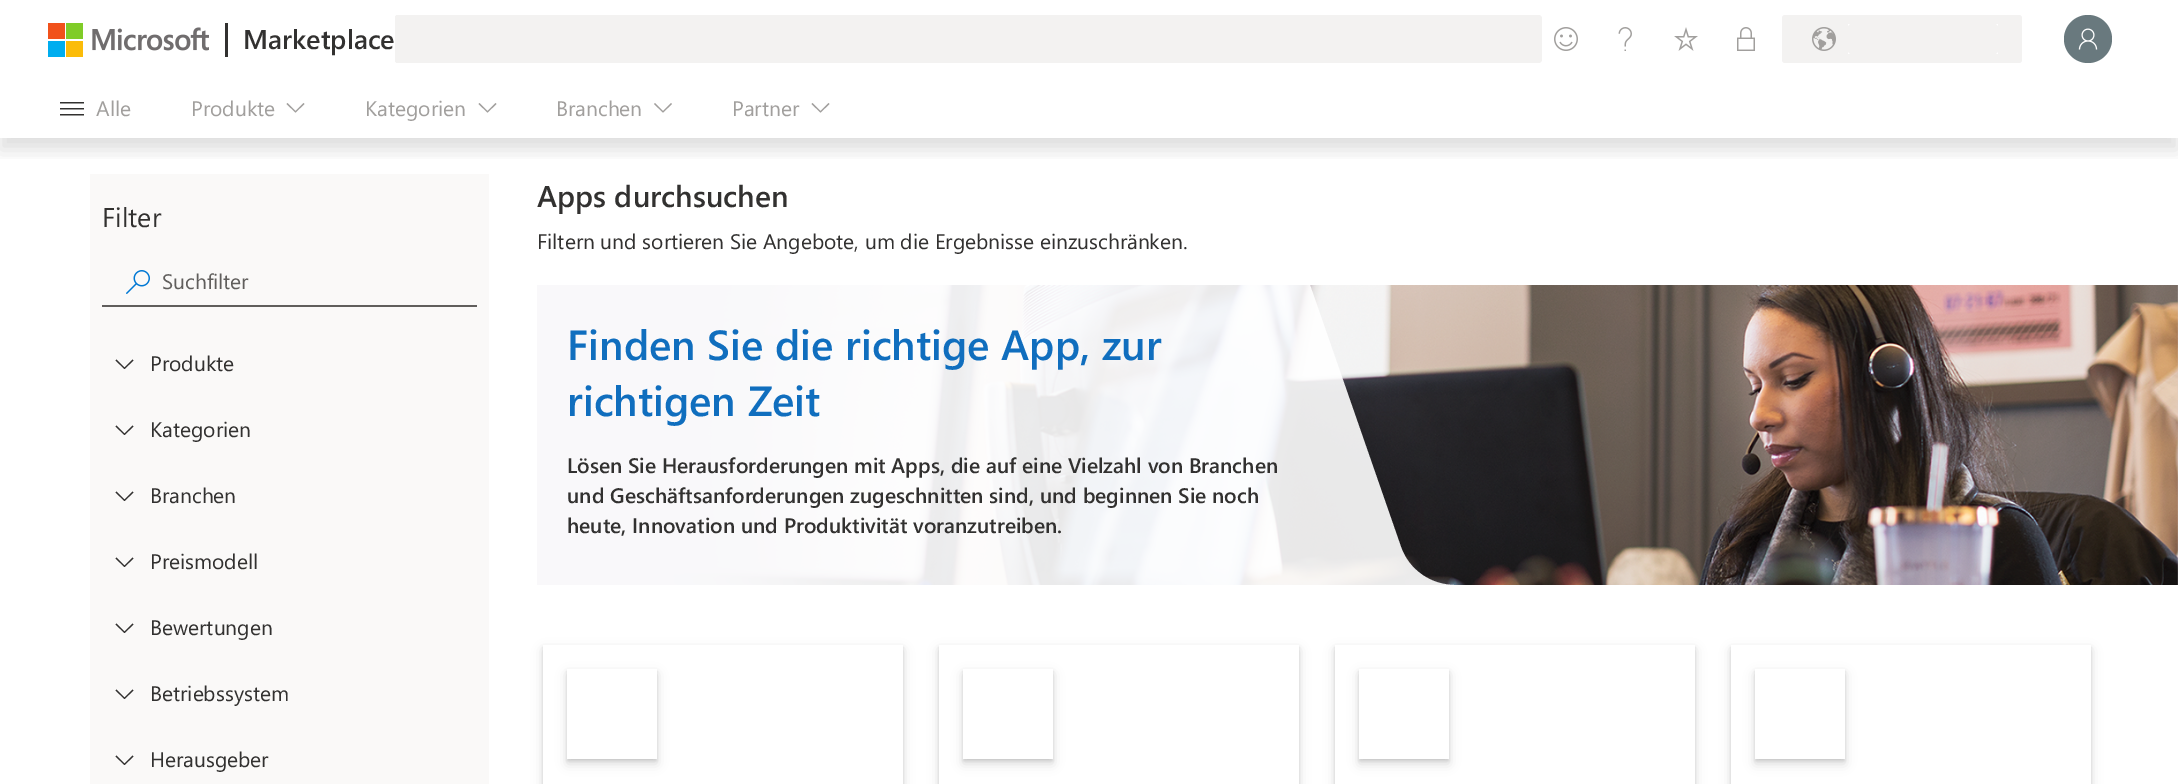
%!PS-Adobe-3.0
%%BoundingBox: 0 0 2178 784
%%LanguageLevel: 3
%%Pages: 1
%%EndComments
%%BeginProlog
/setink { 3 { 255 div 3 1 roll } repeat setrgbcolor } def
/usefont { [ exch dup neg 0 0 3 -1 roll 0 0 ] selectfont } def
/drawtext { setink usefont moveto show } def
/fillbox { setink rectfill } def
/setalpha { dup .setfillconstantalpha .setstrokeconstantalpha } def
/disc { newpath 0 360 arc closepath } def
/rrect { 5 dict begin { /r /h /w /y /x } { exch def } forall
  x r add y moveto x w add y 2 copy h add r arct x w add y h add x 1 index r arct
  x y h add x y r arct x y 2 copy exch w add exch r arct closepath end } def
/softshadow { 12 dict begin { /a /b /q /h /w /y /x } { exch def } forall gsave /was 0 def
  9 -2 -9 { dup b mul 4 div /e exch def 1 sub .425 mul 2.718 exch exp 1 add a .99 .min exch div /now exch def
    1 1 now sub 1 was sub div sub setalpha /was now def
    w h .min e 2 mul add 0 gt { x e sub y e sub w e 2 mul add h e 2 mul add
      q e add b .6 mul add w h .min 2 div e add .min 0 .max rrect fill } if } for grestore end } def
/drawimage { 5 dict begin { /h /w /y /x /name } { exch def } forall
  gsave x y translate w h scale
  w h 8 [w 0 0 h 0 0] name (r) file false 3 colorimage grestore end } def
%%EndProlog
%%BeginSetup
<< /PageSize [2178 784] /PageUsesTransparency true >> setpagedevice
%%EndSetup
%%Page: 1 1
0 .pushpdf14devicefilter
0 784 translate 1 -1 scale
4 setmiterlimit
0 0 2178 784 255 255 255 fillbox
90 174 399 610 250 249 248 fillbox
gsave
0 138 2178 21 rectclip
0 0 0 setink
0 12 2178 138 0 9 0.12 softshadow
grestore
(assets/img1.rgb) 48 23 161 34 drawimage
225 23 3 34 50 49 48 fillbox
(Marketplace) 243 49 /SegoeUI-SemiBold 27 50 49 48 drawtext
395 15 1147 48 243 242 241 fillbox
395 15 1 1 252 252 252 fillbox
(assets/img2.rgb) 1540 15 2 2 drawimage
395 62 1 1 252 252 252 fillbox
(assets/img3.rgb) 1540 61 2 2 drawimage
(assets/img4.rgb) 1554 27 24 24 drawimage
(assets/img5.rgb) 1618 27 14 24 drawimage
(assets/img6.rgb) 1674 27 24 24 drawimage
(assets/img7.rgb) 1737 27 18 24 drawimage
243 242 241 setink
1782 15 240 48 3 rrect fill
(assets/img8.rgb) 1812 27 24 24 drawimage
(assets/img9.rgb) 1848 24 2 2 drawimage
(assets/img2.rgb) 1996 24 2 2 drawimage
(assets/img10.rgb) 1848 52 2 2 drawimage
(assets/img3.rgb) 1996 52 2 2 drawimage
105 121 126 setink
2088 39 24 disc fill
(assets/img11.rgb) 2078 28 20 22 drawimage
(assets/img12.rgb) 60 102 24 14 drawimage
(Alle) 96 116 /SegoeUI-Regular 21 161 159 157 drawtext
(Produkte) 191 116 /SegoeUI-Regular 21 161 159 157 drawtext
303.5 103 moveto 304.5 104 lineto 295.5 112.5 lineto 286.5 104 lineto 287.5 103 lineto 295.5 111 lineto closepath fill
(Kategorien) 365 116 /SegoeUI-Regular 21 161 159 157 drawtext
495.5 103 moveto 496.5 104 lineto 487.5 112.5 lineto 478.5 104 lineto 479.5 103 lineto 487.5 111 lineto closepath fill
(Branchen) 556 116 /SegoeUI-Regular 21 161 159 157 drawtext
671 103 moveto 672 104 lineto 663 112.5 lineto 654 104 lineto 655 103 lineto 663 111 lineto closepath fill
(Partner) 732 116 /SegoeUI-Regular 21 161 159 157 drawtext
828.5 103 moveto 829.5 104 lineto 820.5 112.5 lineto 811.5 104 lineto 812.5 103 lineto 820.5 111 lineto closepath fill
(Filter) 102 227 /SegoeUI-Regular 27 50 49 48 drawtext
102 305 375 2 96 94 92 fillbox
(assets/img13.rgb) 126 270 24 24 drawimage
(Suchfilter) 162 289 /SegoeUI-Regular 21 96 94 92 drawtext
50 49 48 setink
132.5 359.5 moveto 133.5 360.5 lineto 124.5 369 lineto 115.5 360.5 lineto 116.5 359.5 lineto 124.5 367.5 lineto closepath fill
(Produkte) 150 371 /SegoeUI-Regular 21 50 49 48 drawtext
132.5 425.5 moveto 133.5 426.5 lineto 124.5 435 lineto 115.5 426.5 lineto 116.5 425.5 lineto 124.5 433.5 lineto closepath fill
(Kategorien) 150 437 /SegoeUI-Regular 21 50 49 48 drawtext
132.5 491.5 moveto 133.5 492.5 lineto 124.5 501 lineto 115.5 492.5 lineto 116.5 491.5 lineto 124.5 499.5 lineto closepath fill
(Branchen) 150 503 /SegoeUI-Regular 21 50 49 48 drawtext
132.5 557.5 moveto 133.5 558.5 lineto 124.5 567 lineto 115.5 558.5 lineto 116.5 557.5 lineto 124.5 565.5 lineto closepath fill
(Preismodell) 150 569 /SegoeUI-Regular 21 50 49 48 drawtext
132.5 623.5 moveto 133.5 624.5 lineto 124.5 633 lineto 115.5 624.5 lineto 116.5 623.5 lineto 124.5 631.5 lineto closepath fill
(Bewertungen) 150 635 /SegoeUI-Regular 21 50 49 48 drawtext
132.5 689.5 moveto 133.5 690.5 lineto 124.5 699 lineto 115.5 690.5 lineto 116.5 689.5 lineto 124.5 697.5 lineto closepath fill
(Betriebssystem) 150 701 /SegoeUI-Regular 21 50 49 48 drawtext
132.5 755.5 moveto 133.5 756.5 lineto 124.5 765 lineto 115.5 756.5 lineto 116.5 755.5 lineto 124.5 763.5 lineto closepath fill
(Herausgeber) 150 767 /SegoeUI-Regular 21 50 49 48 drawtext
(Apps durchsuchen) 537 207 /SegoeUI-SemiBold 30 50 49 48 drawtext
(Filtern und sortieren Sie Angebote, um die Ergebnisse einzuschränken.) 537 249 /SegoeUI-Regular 21 50 49 48 drawtext
(assets/img14.rgb) 537 285 1641 300 drawimage
0.9 setalpha
255 255 255 setink
537 285 moveto 1310 285 lineto 1401 547 lineto 1409 570 1431 585 1455 585 curveto 1474 585 lineto 537 585 lineto closepath fill
1 setalpha
(Finden Sie die richtige App, zur) 567 360 /SegoeUI-SemiBold 42 16 110 190 drawtext
(richtigen Zeit) 567 416 /SegoeUI-SemiBold 42 16 110 190 drawtext
(Lösen Sie Herausforderungen mit Apps, die auf eine Vielzahl von Branchen) 567 473 /SegoeUI-SemiBold 21 50 49 48 drawtext
(und Geschäftsanforderungen zugeschnitten sind, und beginnen Sie noch) 567 503 /SegoeUI-SemiBold 21 50 49 48 drawtext
(heute, Innovation und Produktivität voranzutreiben.) 567 533 /SegoeUI-SemiBold 21 50 49 48 drawtext
gsave
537 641 moveto 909 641 lineto 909 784 lineto 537 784 lineto closepath 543 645 moveto 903 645 lineto 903 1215 lineto 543 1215 lineto closepath eoclip newpath
0 0 0 setink
543 647 360 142 0 1.5 0.11 softshadow
grestore
gsave
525 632 moveto 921 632 lineto 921 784 lineto 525 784 lineto closepath 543 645 moveto 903 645 lineto 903 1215 lineto 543 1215 lineto closepath eoclip newpath
0 0 0 setink
543 650 360 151 0 5.5 0.13 softshadow
grestore
gsave
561 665 moveto 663 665 lineto 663 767 lineto 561 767 lineto closepath 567 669 moveto 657 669 lineto 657 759 lineto 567 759 lineto closepath eoclip newpath
0 0 0 setink
567 671 90 90 0 1.5 0.11 softshadow
grestore
gsave
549 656 moveto 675 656 lineto 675 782 lineto 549 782 lineto closepath 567 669 moveto 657 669 lineto 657 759 lineto 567 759 lineto closepath eoclip newpath
0 0 0 setink
567 674 90 90 0 5.5 0.13 softshadow
grestore
gsave
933 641 moveto 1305 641 lineto 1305 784 lineto 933 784 lineto closepath 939 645 moveto 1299 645 lineto 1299 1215 lineto 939 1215 lineto closepath eoclip newpath
0 0 0 setink
939 647 360 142 0 1.5 0.11 softshadow
grestore
gsave
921 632 moveto 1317 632 lineto 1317 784 lineto 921 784 lineto closepath 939 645 moveto 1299 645 lineto 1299 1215 lineto 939 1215 lineto closepath eoclip newpath
0 0 0 setink
939 650 360 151 0 5.5 0.13 softshadow
grestore
gsave
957 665 moveto 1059 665 lineto 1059 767 lineto 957 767 lineto closepath 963 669 moveto 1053 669 lineto 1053 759 lineto 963 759 lineto closepath eoclip newpath
0 0 0 setink
963 671 90 90 0 1.5 0.11 softshadow
grestore
gsave
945 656 moveto 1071 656 lineto 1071 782 lineto 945 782 lineto closepath 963 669 moveto 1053 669 lineto 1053 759 lineto 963 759 lineto closepath eoclip newpath
0 0 0 setink
963 674 90 90 0 5.5 0.13 softshadow
grestore
gsave
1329 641 moveto 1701 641 lineto 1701 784 lineto 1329 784 lineto closepath 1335 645 moveto 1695 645 lineto 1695 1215 lineto 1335 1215 lineto closepath eoclip newpath
0 0 0 setink
1335 647 360 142 0 1.5 0.11 softshadow
grestore
gsave
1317 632 moveto 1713 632 lineto 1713 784 lineto 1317 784 lineto closepath 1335 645 moveto 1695 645 lineto 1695 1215 lineto 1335 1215 lineto closepath eoclip newpath
0 0 0 setink
1335 650 360 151 0 5.5 0.13 softshadow
grestore
gsave
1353 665 moveto 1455 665 lineto 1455 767 lineto 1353 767 lineto closepath 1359 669 moveto 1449 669 lineto 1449 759 lineto 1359 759 lineto closepath eoclip newpath
0 0 0 setink
1359 671 90 90 0 1.5 0.11 softshadow
grestore
gsave
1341 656 moveto 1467 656 lineto 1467 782 lineto 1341 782 lineto closepath 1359 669 moveto 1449 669 lineto 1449 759 lineto 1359 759 lineto closepath eoclip newpath
0 0 0 setink
1359 674 90 90 0 5.5 0.13 softshadow
grestore
gsave
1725 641 moveto 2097 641 lineto 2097 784 lineto 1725 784 lineto closepath 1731 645 moveto 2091 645 lineto 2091 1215 lineto 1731 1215 lineto closepath eoclip newpath
0 0 0 setink
1731 647 360 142 0 1.5 0.11 softshadow
grestore
gsave
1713 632 moveto 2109 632 lineto 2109 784 lineto 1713 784 lineto closepath 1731 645 moveto 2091 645 lineto 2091 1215 lineto 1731 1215 lineto closepath eoclip newpath
0 0 0 setink
1731 650 360 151 0 5.5 0.13 softshadow
grestore
gsave
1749 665 moveto 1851 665 lineto 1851 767 lineto 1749 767 lineto closepath 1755 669 moveto 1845 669 lineto 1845 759 lineto 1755 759 lineto closepath eoclip newpath
0 0 0 setink
1755 671 90 90 0 1.5 0.11 softshadow
grestore
gsave
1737 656 moveto 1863 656 lineto 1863 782 lineto 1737 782 lineto closepath 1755 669 moveto 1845 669 lineto 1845 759 lineto 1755 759 lineto closepath eoclip newpath
0 0 0 setink
1755 674 90 90 0 5.5 0.13 softshadow
grestore
.poppdf14devicefilter showpage
%%EOF
